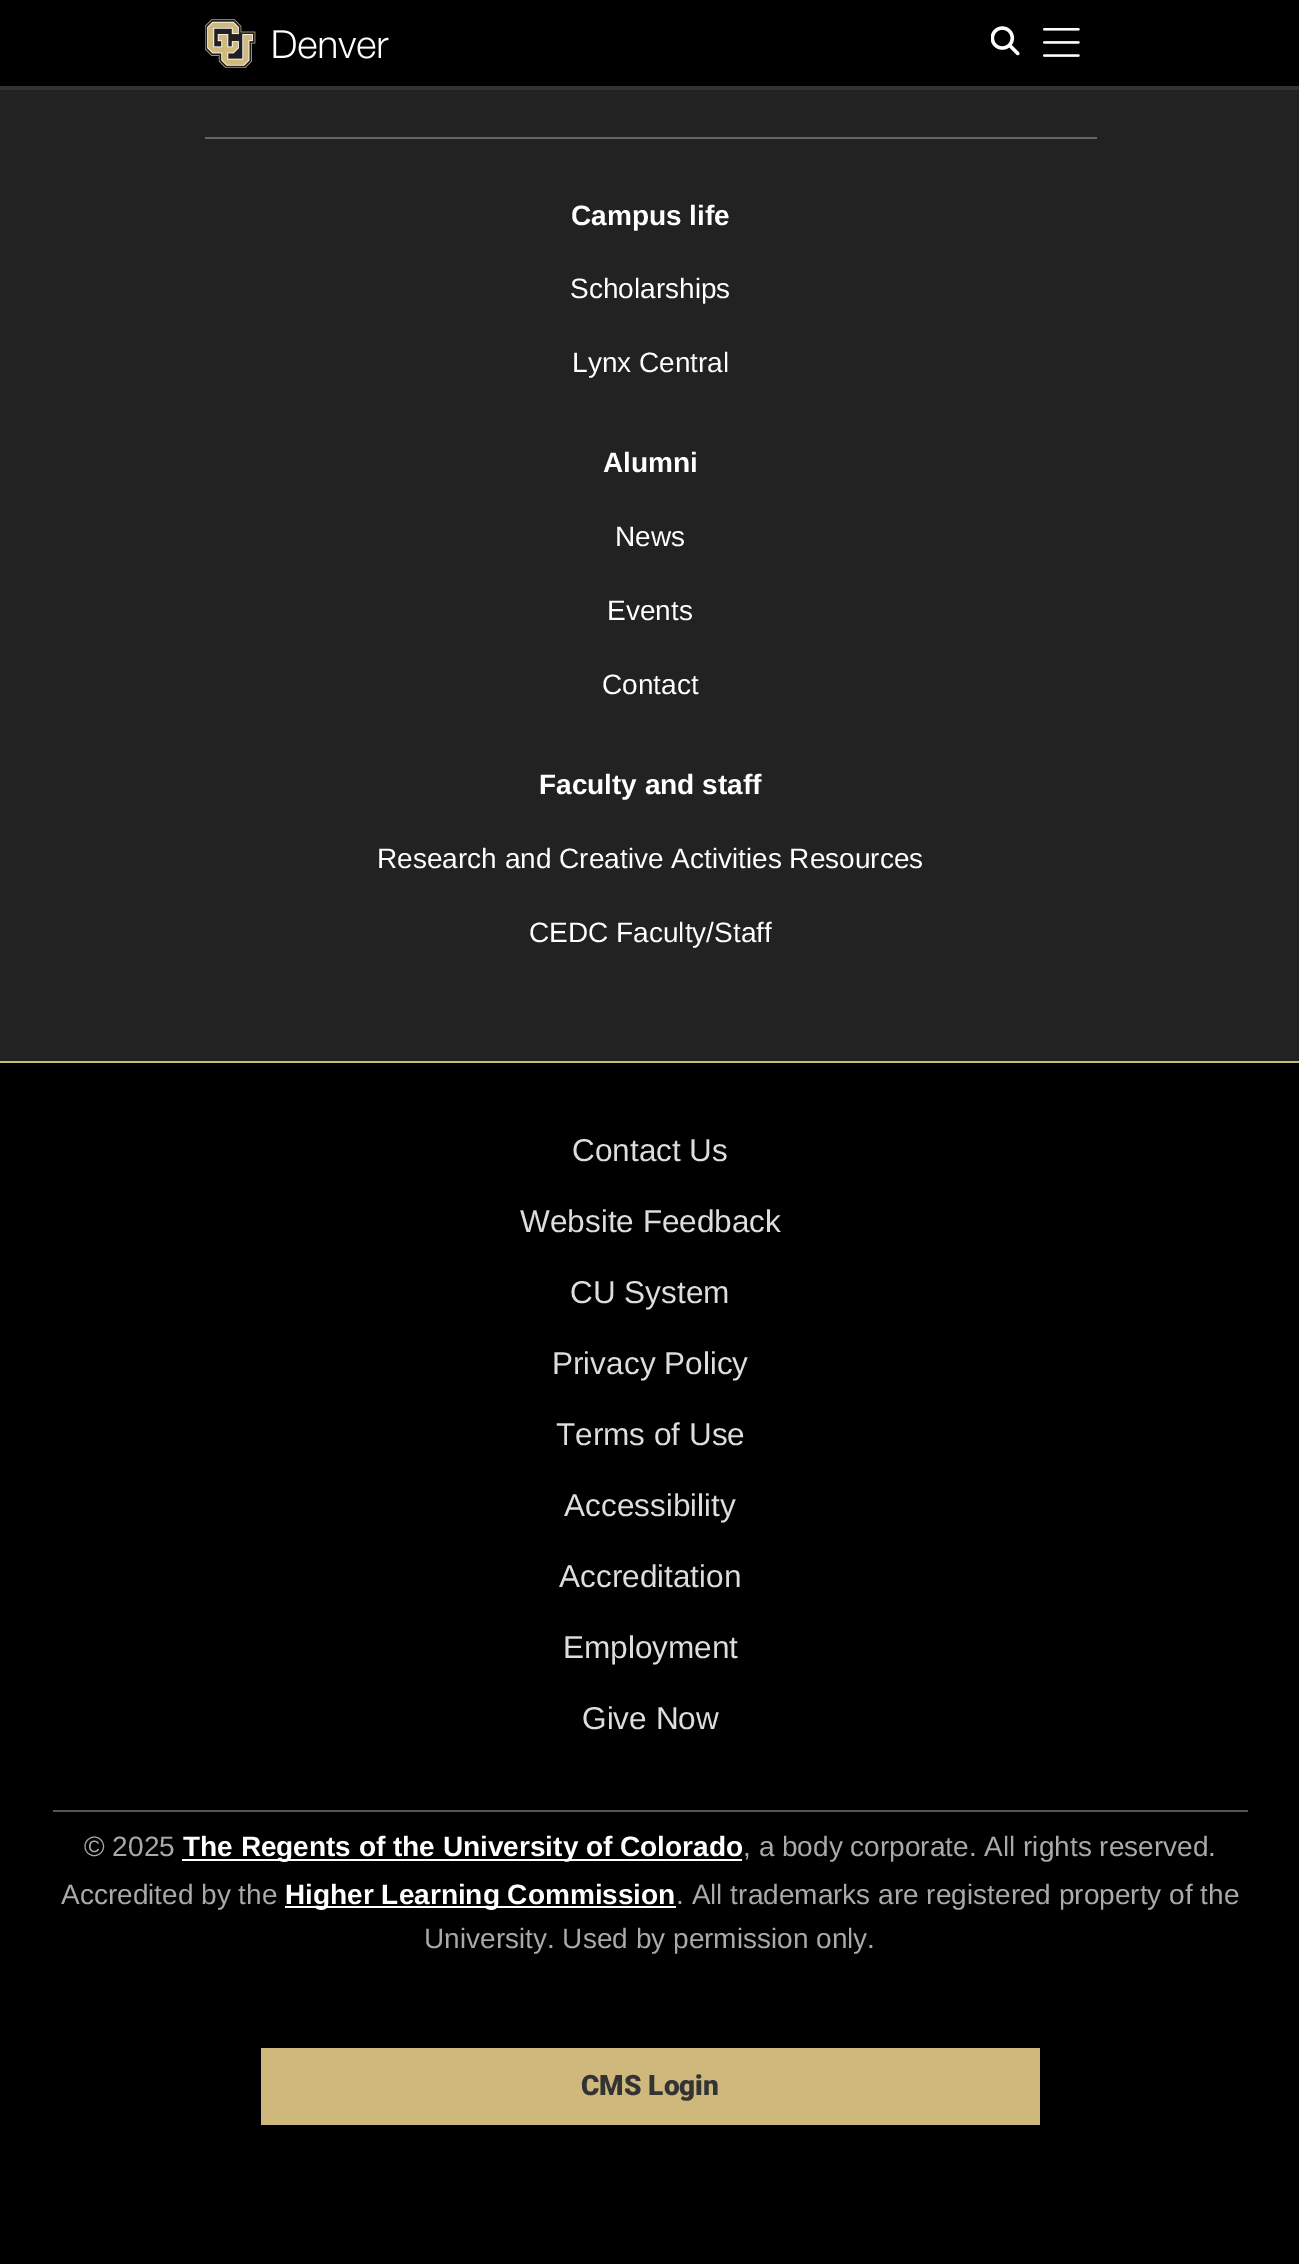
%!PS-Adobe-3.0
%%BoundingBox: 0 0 1299 2264
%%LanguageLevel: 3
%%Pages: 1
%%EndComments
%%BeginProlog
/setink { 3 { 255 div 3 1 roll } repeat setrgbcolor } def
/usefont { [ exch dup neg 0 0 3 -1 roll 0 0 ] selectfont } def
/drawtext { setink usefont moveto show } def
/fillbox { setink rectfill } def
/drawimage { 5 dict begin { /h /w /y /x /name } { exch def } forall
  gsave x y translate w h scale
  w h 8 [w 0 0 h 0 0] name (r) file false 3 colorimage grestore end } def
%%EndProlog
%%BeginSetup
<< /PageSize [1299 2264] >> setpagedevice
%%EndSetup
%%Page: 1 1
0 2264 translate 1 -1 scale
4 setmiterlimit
0 0 1299 2264 34 34 34 fillbox
0 0 1299 86 0 0 0 fillbox
(assets/img1.rgb) 205 19 184 49 drawimage
(assets/img2.rgb) 991 26 29 30 drawimage
(assets/img3.rgb) 1043 28 37 29 drawimage
0 86 1299 4 51 51 51 fillbox
205 137 892 2 102 102 102 fillbox
(Campus life) 571 225 /LiberationSans-Bold 28 255 255 255 drawtext
(Scholarships) 570 298 /LiberationSans-Regular 28 255 255 255 drawtext
(Lynx Central) 572 372 /LiberationSans-Regular 28 255 255 255 drawtext
(Alumni) 603 472 /LiberationSans-Bold 28 255 255 255 drawtext
(News) 615 546 /LiberationSans-Regular 28 255 255 255 drawtext
(Events) 607 620 /LiberationSans-Regular 28 255 255 255 drawtext
(Contact) 602 694 /LiberationSans-Regular 28 255 255 255 drawtext
(Faculty and staff) 539 794 /LiberationSans-Bold 28 255 255 255 drawtext
(Research and Creative Activities Resources) 377 868 /LiberationSans-Regular 28 255 255 255 drawtext
(CEDC Faculty/Staff) 529 942 /LiberationSans-Regular 28 255 255 255 drawtext
0 1063 1299 1201 0 0 0 fillbox
0 1061 1299 2 207 184 124 fillbox
(Contact Us) 572 1161 /LiberationSans-Regular 31.5 221 221 221 drawtext
(Website Feedback) 520 1232 /LiberationSans-Regular 31.5 221 221 221 drawtext
(CU System) 570 1303 /LiberationSans-Regular 31.5 221 221 221 drawtext
(Privacy Policy) 552 1374 /LiberationSans-Regular 31.5 221 221 221 drawtext
(Terms of Use) 556 1445 /LiberationSans-Regular 31.5 221 221 221 drawtext
(Accessibility) 564 1516 /LiberationSans-Regular 31.5 221 221 221 drawtext
(Accreditation) 559 1587 /LiberationSans-Regular 31.5 221 221 221 drawtext
(Employment) 563 1658 /LiberationSans-Regular 31.5 221 221 221 drawtext
(Give Now) 582 1729 /LiberationSans-Regular 31.5 221 221 221 drawtext
53 1810 1195 2 85 85 85 fillbox
(© 2025) 84 1856 /LiberationSans-Regular 28 170 170 170 drawtext
182 1859 560 2 255 255 255 fillbox
(The Regents of the University of Colorado) 183 1856 /LiberationSans-Bold 28 255 255 255 drawtext
(, a body corporate. All rights reserved.) 743 1856 /LiberationSans-Regular 28 170 170 170 drawtext
(Accredited by the) 61 1904 /LiberationSans-Regular 28 170 170 170 drawtext
285 1906 391 2 255 255 255 fillbox
(Higher Learning Commission) 285 1904 /LiberationSans-Bold 28 255 255 255 drawtext
(. All trademarks are registered property of the) 676 1904 /LiberationSans-Regular 28 170 170 170 drawtext
(University. Used by permission only.) 424 1948 /LiberationSans-Regular 28 170 170 170 drawtext
261 2048 779 77 207 184 124 fillbox
(CMS Login) 581 2095 /Roboto-Black 28 51 51 51 drawtext
showpage
%%EOF
